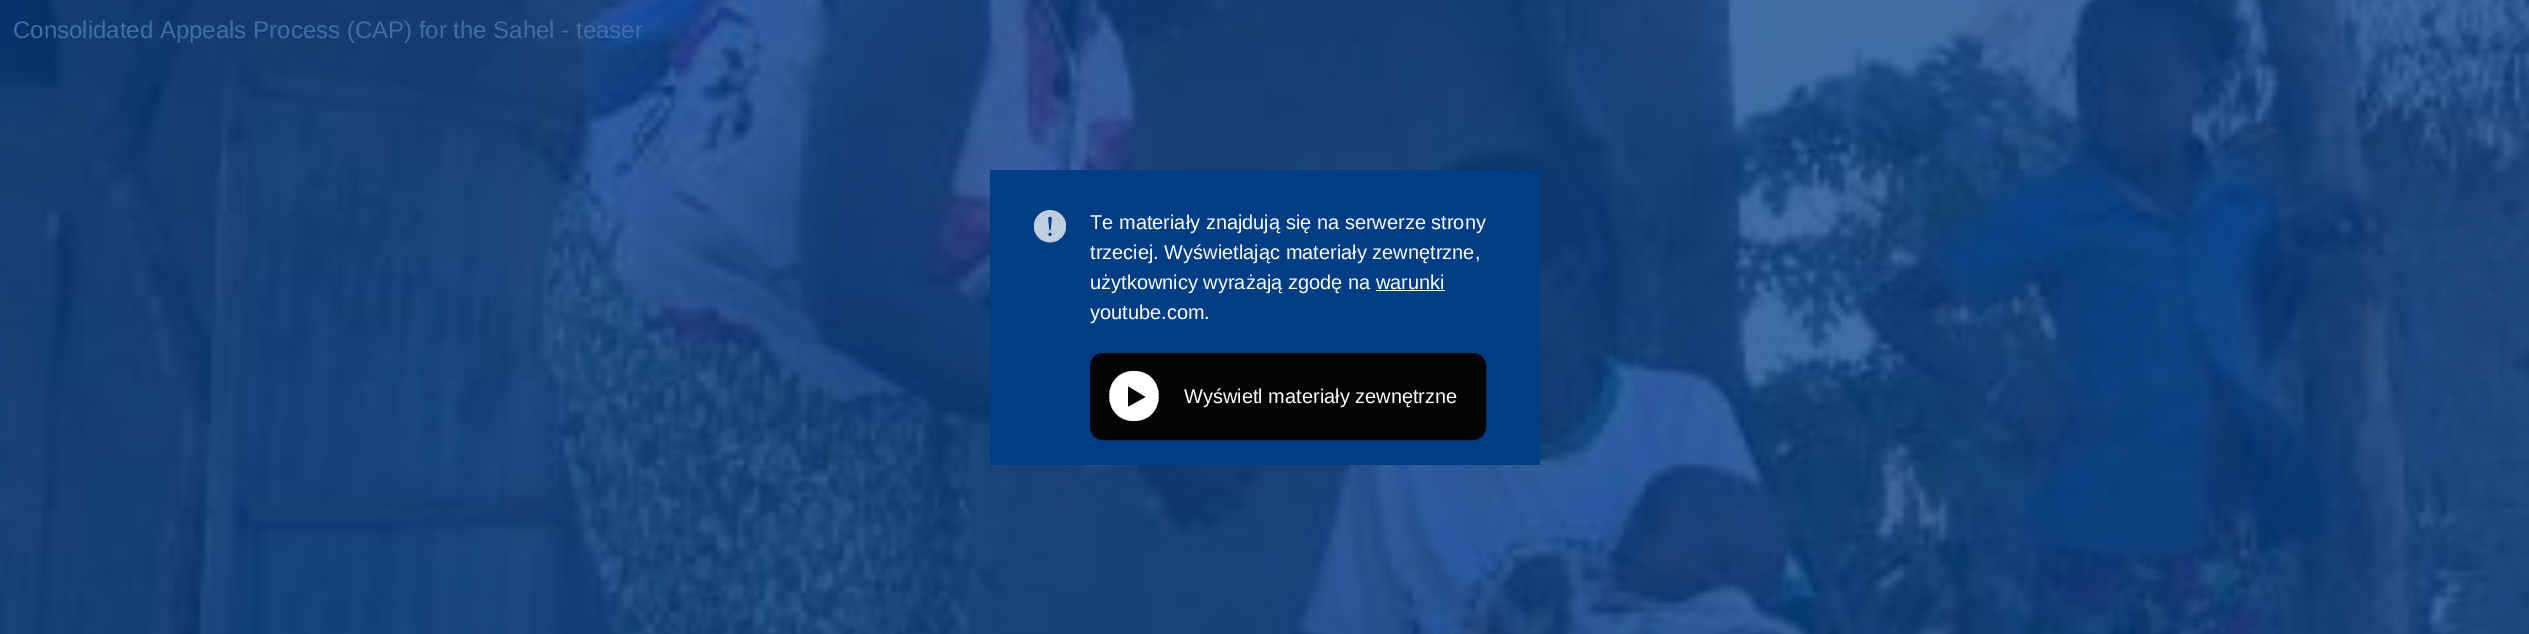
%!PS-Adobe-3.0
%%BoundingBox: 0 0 2529 634
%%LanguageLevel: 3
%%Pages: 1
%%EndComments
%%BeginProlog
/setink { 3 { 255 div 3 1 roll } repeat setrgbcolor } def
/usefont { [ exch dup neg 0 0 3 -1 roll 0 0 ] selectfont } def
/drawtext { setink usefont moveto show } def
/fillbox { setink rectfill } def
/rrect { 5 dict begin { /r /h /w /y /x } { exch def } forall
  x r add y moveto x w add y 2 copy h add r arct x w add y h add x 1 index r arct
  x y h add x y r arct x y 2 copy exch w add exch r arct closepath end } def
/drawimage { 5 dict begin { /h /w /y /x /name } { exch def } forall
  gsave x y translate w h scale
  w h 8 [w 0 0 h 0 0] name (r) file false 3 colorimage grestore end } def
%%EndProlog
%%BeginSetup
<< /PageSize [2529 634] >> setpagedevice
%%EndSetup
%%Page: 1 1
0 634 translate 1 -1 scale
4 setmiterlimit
0 0 2529 634 255 255 255 fillbox
(assets/img1.rgb) 0 0 2529 634 drawimage
(Consolidated Appeals Process \(CAP\) for the Sahel - teaser) 13 38 /LiberationSans-Regular 24 64 110 163 drawtext
990 170 550 295 0 61 132 fillbox
(assets/img2.rgb) 1034 210 32 33 drawimage
(Te materiały znajdują się na serwerze strony) 1090 229 /LiberationSans-Regular 20 255 255 255 drawtext
(trzeciej. Wyświetlając materiały zewnętrzne,) 1090 259 /LiberationSans-Regular 20 255 255 255 drawtext
(użytkownicy wyrażają zgodę na warunki) 1090 289 /LiberationSans-Regular 20 255 255 255 drawtext
1376 290 69 1 255 255 255 fillbox
(youtube.com.) 1090 319 /LiberationSans-Regular 20 255 255 255 drawtext
4 4 4 setink
1092 355 392 83 11 rrect gsave fill grestore
4 setlinewidth
stroke
255 255 255 setink
1134 371 moveto 1101 371 1101 421 1134 421 curveto 1167 421 1167 371 1134 371 curveto closepath 1128 407 moveto 1128 386 lineto 1146 397 lineto closepath fill
(Wyświetl materiały zewnętrzne) 1184 403 /LiberationSans-Regular 20 255 255 255 drawtext
showpage
%%EOF
